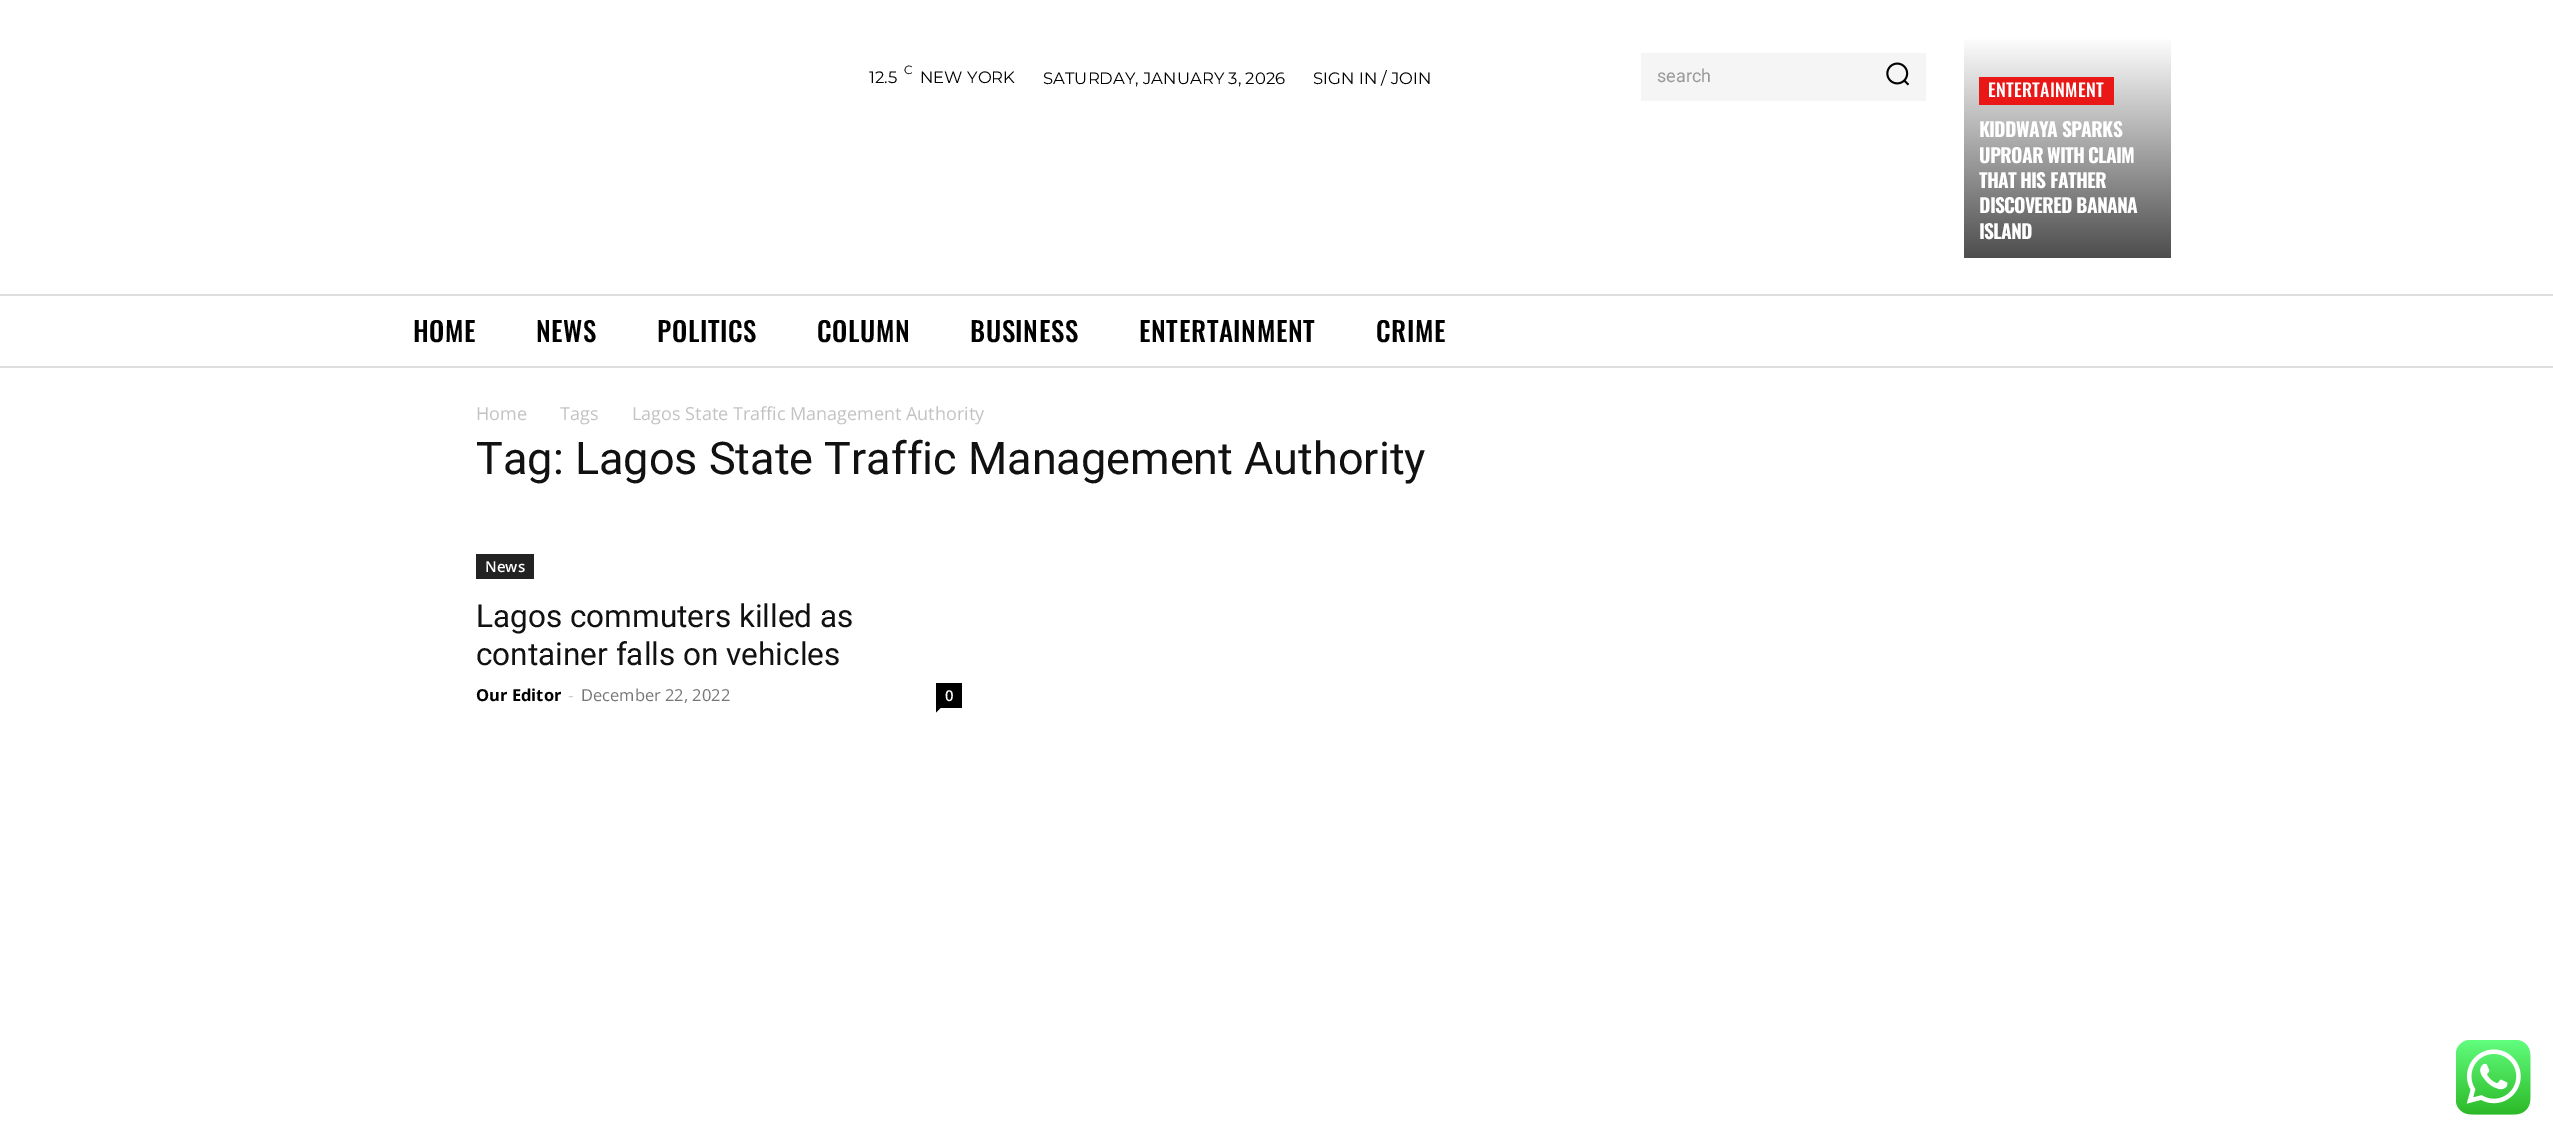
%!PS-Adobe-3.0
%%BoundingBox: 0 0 2553 1136
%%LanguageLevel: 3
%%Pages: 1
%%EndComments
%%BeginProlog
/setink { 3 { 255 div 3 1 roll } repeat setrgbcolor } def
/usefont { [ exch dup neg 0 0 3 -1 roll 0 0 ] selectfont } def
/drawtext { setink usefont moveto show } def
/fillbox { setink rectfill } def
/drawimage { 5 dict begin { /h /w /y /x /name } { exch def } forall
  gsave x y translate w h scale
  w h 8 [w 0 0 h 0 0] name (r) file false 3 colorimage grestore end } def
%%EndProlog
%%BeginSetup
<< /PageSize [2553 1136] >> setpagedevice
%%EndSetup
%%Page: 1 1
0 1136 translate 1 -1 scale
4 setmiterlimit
0 0 2553 1136 255 255 255 fillbox
(C) 904 74 /Montserrat-Regular 12 0 0 0 drawtext
(12.5) 869 83 /Montserrat-Regular 16.5 0 0 0 drawtext
(NEW YORK) 920 83 /Montserrat-Regular 16.5 0 0 0 drawtext
(SATURDAY, JANUARY 3, 2026) 1043 84 /Montserrat-Regular 16.5 0 0 0 drawtext
(SIGN IN / JOIN) 1313 84 /Montserrat-Regular 16.5 0 0 0 drawtext
1641 53 285 48 245 245 245 fillbox
(search) 1657 82 /Roboto-Regular 18 153 153 153 drawtext
(assets/img1.rgb) 1886 62 24 24 drawimage
gsave 1964 39 moveto 2171 39 lineto 2171 258 lineto 1964 258 lineto closepath clip newpath
<< /ShadingType 2 /ColorSpace /DeviceRGB /Coords [2067 258 2067 36] /Extend [true true] /Function << /FunctionType 2 /Domain [0 1] /C0 [0.302 0.302 0.302] /C1 [1 1 1] /N 1 >> >> shfill grestore
1979 77 135 28 234 23 23 fillbox
/Oswald-Medium 18 usefont
255 255 255 setink
1988 97 moveto 0.25 0 (ENTERTAINMENT) ashow
/Oswald-Bold 19.5 usefont
1979 137 moveto -0.75 0 (KIDDWAYA SPARKS) ashow
1979 163 moveto -0.75 0 (UPROAR WITH CLAIM) ashow
1979 188 moveto -0.75 0 (THAT HIS FATHER) ashow
1979 213 moveto -0.75 0 (DISCOVERED BANANA) ashow
1979 239 moveto -0.75 0 (ISLAND) ashow
0 294 2553 2 221 221 221 fillbox
0 366 2553 2 221 221 221 fillbox
/Oswald-Medium 27 usefont
0 0 0 setink
413 342 moveto 0.6 0 (HOME) ashow
536 342 moveto 0.6 0 (NEWS) ashow
657 342 moveto 0.6 0 (POLITICS) ashow
817 342 moveto 0.6 0 (COLUMN) ashow
970 342 moveto 0.6 0 (BUSINESS) ashow
1139 342 moveto 0.6 0 (ENTERTAINMENT) ashow
1376 342 moveto 0.6 0 (CRIME) ashow
(Home) 476 420 /OpenSans-Regular 18 195 195 195 drawtext
(Tags) 560 420 /OpenSans-Regular 18 195 195 195 drawtext
(Lagos State Traffic Management Authority) 632 420 /OpenSans-Regular 18 195 195 195 drawtext
(Tag: Lagos State Traffic Management Authority) 476 474 /Roboto-Regular 45 17 17 17 drawtext
476 554 58 25 34 34 34 fillbox
(News) 485 572 /OpenSans-SemiBold 15 255 255 255 drawtext
(Lagos commuters killed as) 476 627 /Roboto-Regular 31.5 17 17 17 drawtext
(container falls on vehicles) 476 665 /Roboto-Regular 31.5 17 17 17 drawtext
(Our Editor) 476 701 /OpenSans-Bold 16.5 0 0 0 drawtext
(-) 568 701 /OpenSans-Regular 16.5 204 204 204 drawtext
(December 22, 2022) 581 701 /OpenSans-Regular 16.5 118 118 118 drawtext
936 683 26 25 0 0 0 fillbox
(0) 945 701 /OpenSans-SemiBold 15 255 255 255 drawtext
0 0 0 setink
936 708 moveto 940.5 708 lineto 936 712.5 lineto closepath fill
(assets/img2.rgb) 2456 1040 75 75 drawimage
showpage
%%EOF
